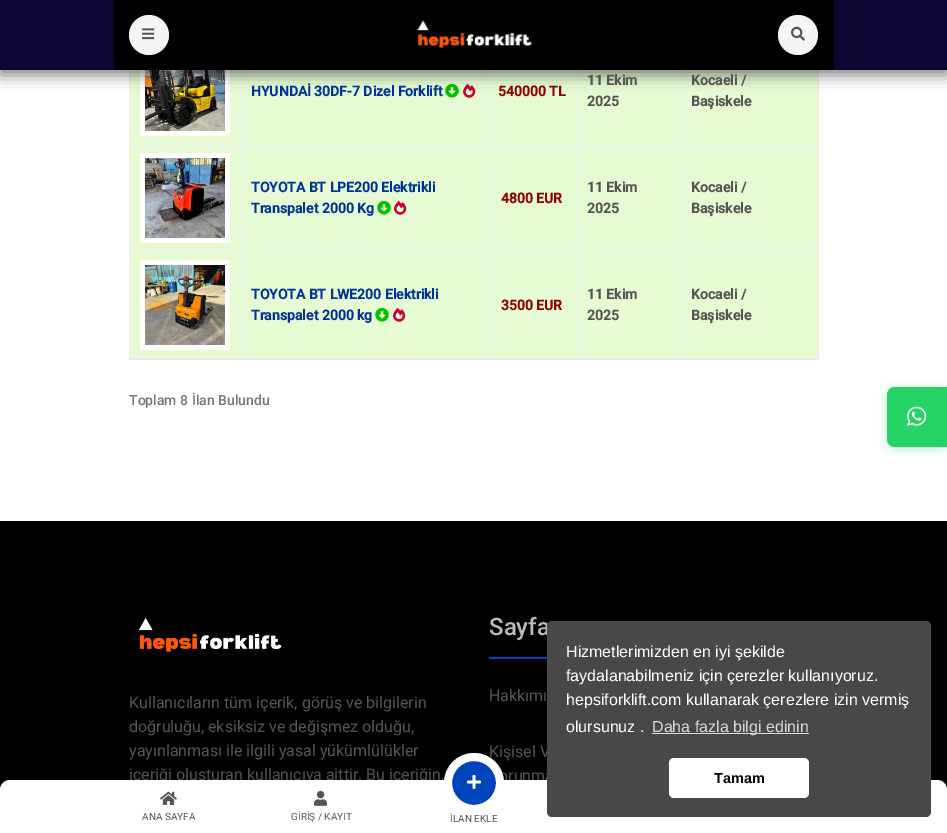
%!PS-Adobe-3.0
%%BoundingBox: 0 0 947 833
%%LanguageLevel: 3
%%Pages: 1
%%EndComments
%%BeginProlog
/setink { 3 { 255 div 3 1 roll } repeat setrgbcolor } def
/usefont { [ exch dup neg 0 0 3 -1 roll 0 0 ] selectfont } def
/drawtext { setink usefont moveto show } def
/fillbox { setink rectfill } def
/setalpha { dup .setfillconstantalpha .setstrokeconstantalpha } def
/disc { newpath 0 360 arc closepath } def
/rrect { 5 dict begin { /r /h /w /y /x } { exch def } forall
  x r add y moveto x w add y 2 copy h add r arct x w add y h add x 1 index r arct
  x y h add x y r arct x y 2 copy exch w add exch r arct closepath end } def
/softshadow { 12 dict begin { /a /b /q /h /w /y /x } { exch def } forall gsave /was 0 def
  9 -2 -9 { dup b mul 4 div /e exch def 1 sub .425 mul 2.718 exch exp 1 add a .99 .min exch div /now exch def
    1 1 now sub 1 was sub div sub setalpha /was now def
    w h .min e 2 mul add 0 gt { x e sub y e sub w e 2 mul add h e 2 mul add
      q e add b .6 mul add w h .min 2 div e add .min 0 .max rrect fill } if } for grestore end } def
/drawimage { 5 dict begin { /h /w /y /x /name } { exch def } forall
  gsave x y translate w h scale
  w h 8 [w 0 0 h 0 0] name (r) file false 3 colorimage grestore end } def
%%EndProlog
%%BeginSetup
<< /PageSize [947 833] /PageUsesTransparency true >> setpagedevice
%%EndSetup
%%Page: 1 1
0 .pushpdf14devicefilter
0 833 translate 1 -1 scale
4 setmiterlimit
0 0 947 833 255 255 255 fillbox
818 70 1 289 238 238 238 fillbox
129 358 690 1 238 238 238 fillbox
129 70 1 289 238 238 238 fillbox
130 70 688 74 230 251 211 fillbox
140 70 90 66 255 255 255 fillbox
(assets/img4.rgb) 145 70 80 61 drawimage
680 144 139 1 238 238 238 fillbox
130 145 688 106 230 251 211 fillbox
680 251 139 1 238 238 238 fillbox
130 252 688 106 230 251 211 fillbox
680 251 1 108 238 238 238 fillbox
576 251 105 1 238 238 238 fillbox
680 144 1 108 238 238 238 fillbox
576 144 105 1 238 238 238 fillbox
576 251 1 108 238 238 238 fillbox
486 251 91 1 238 238 238 fillbox
576 144 1 108 238 238 238 fillbox
486 144 91 1 238 238 238 fillbox
486 251 1 108 238 238 238 fillbox
240 251 247 1 238 238 238 fillbox
486 144 1 108 238 238 238 fillbox
240 144 247 1 238 238 238 fillbox
240 251 1 108 238 238 238 fillbox
129 251 112 1 238 238 238 fillbox
240 144 1 108 238 238 238 fillbox
129 144 112 1 238 238 238 fillbox
240 70 1 75 238 238 238 fillbox
(assets/img5.rgb) 445 84 14 14 drawimage
(assets/img6.rgb) 463 83 13 15 drawimage
486 70 1 75 238 238 238 fillbox
576 70 1 75 238 238 238 fillbox
680 70 1 75 238 238 238 fillbox
0 0 0 setink
0 5 947 70 0 7.5 0.5 softshadow
0 0 947 70 13 6 51 fillbox
114 0 720 70 0 0 0 fillbox
245 245 245 setink
149 35 20 disc fill
(assets/img1.rgb) 142 28 13 12 drawimage
(assets/img2.rgb) 417 20 116 29 drawimage
798 35 20 disc fill
(assets/img3.rgb) 791 26 14 15 drawimage
(HYUNDAİ 30DF-7 Dizel Forklift) 251 96 /Roboto-Bold 14 0 51 153 drawtext
(540000 TL) 498 96 /Roboto-Bold 14 145 0 0 drawtext
(11 Ekim) 587 85 /Roboto-Bold 14 85 85 85 drawtext
(2025) 587 106 /Roboto-Bold 14 85 85 85 drawtext
(Kocaeli /) 691 85 /Roboto-Bold 14 85 85 85 drawtext
(Başiskele) 691 106 /Roboto-Bold 14 85 85 85 drawtext
140 153 90 90 255 255 255 fillbox
(assets/img7.rgb) 145 158 80 80 drawimage
(TOYOTA BT LPE200 Elektrikli) 251 192 /Roboto-Bold 14 0 51 153 drawtext
(Transpalet 2000 Kg) 251 213 /Roboto-Bold 14 0 51 153 drawtext
(assets/img5.rgb) 377 201 14 14 drawimage
(assets/img6.rgb) 394 200 13 15 drawimage
(4800 EUR) 501 203 /Roboto-Bold 14 145 0 0 drawtext
(11 Ekim) 587 192 /Roboto-Bold 14 85 85 85 drawtext
(2025) 587 213 /Roboto-Bold 14 85 85 85 drawtext
(Kocaeli /) 691 192 /Roboto-Bold 14 85 85 85 drawtext
(Başiskele) 691 213 /Roboto-Bold 14 85 85 85 drawtext
140 260 90 90 255 255 255 fillbox
(assets/img8.rgb) 145 265 80 80 drawimage
(TOYOTA BT LWE200 Elektrikli) 251 299 /Roboto-Bold 14 0 51 153 drawtext
(Transpalet 2000 kg) 251 320 /Roboto-Bold 14 0 51 153 drawtext
(assets/img5.rgb) 375 308 14 14 drawimage
(assets/img6.rgb) 393 307 13 15 drawimage
(3500 EUR) 501 310 /Roboto-Bold 14 145 0 0 drawtext
(11 Ekim) 587 299 /Roboto-Bold 14 85 85 85 drawtext
(2025) 587 320 /Roboto-Bold 14 85 85 85 drawtext
(Kocaeli /) 691 299 /Roboto-Bold 14 85 85 85 drawtext
(Başiskele) 691 320 /Roboto-Bold 14 85 85 85 drawtext
129 359 690 1 232 232 232 fillbox
(Toplam 8 İlan Bulundu) 129 405 /Roboto-Medium 14 119 119 119 drawtext
37 211 102 setink
887 389 60 60 8 5 0.3 softshadow
895 387 moveto 947 387 lineto 947 447 lineto 895 447 lineto 890.5 447 887 443.5 887 439 curveto 887 395 lineto 887 390.5 890.5 387 895 387 curveto closepath fill
(assets/img9.rgb) 907 406 20 20 drawimage
0 521 947 269 0 0 0 fillbox
(assets/img10.rgb) 138 618 144 34 drawimage
(Kullanıcıların tüm içerik, görüş ve bilgilerin) 129 708 /Roboto-Regular 16 85 85 85 drawtext
(doğruluğu, eksiksiz ve değişmez olduğu,) 129 732 /Roboto-Regular 16 85 85 85 drawtext
(yayınlanması ile ilgili yasal yükümlülükler) 129 756 /Roboto-Regular 16 85 85 85 drawtext
(içeriği oluşturan kullanıcıya aittir. Bu içeriğin,) 129 780 /Roboto-Regular 16 85 85 85 drawtext
(Sayfa) 489 635 /Roboto-Medium 24 187 187 187 drawtext
489 657 60 2 0 68 187 fillbox
(Hakkımı) 489 701 /Roboto-Regular 16 85 85 85 drawtext
(Kişisel V) 489 757 /Roboto-Regular 16 85 85 85 drawtext
(orunma) 499 781 /Roboto-Regular 16 85 85 85 drawtext
0 0 0 setink
0 775 947 53 10 7.5 0.1 softshadow
255 255 255 setink
10 780 moveto 937 780 lineto 942.5 780 947 784.5 947 790 curveto 947 833 lineto 0 833 lineto 0 790 lineto 0 784.5 4.5 780 10 780 curveto closepath fill
72 72 72 setink
547 621 384 196 5 rrect fill
(Hizmetlerimizden en iyi şekilde) 566 657 /LiberationSans-Regular 16 255 255 255 drawtext
(faydalanabilmeniz için çerezler kullanıyoruz.) 566 681 /LiberationSans-Regular 16 255 255 255 drawtext
(hepsiforklift.com kullanarak çerezlere izin vermiş) 566 705 /LiberationSans-Regular 16 255 255 255 drawtext
(olursunuz .) 566 732 /LiberationSans-Regular 16 255 255 255 drawtext
652 733 157 1 218 218 218 fillbox
(Daha fazla bilgi edinin) 652 732 /LiberationSans-Regular 16 218 218 218 drawtext
255 255 255 setink
669 758 140 40 5 rrect fill
(Tamam) 714 783 /LiberationSans-Bold 14.5 0 0 0 drawtext
(assets/img11.rgb) 160 791 17 14 drawimage
(ANA SAYFA) 142 820 /Roboto-Regular 10 85 85 85 drawtext
(assets/img12.rgb) 314 790 14 16 drawimage
(GİRİŞ / KAYIT) 291 820 /Roboto-Regular 10 85 85 85 drawtext
0 68 187 setink
474 783 26 disc gsave fill grestore
255 255 255 setink
8 setlinewidth
stroke
(assets/img13.rgb) 467 775 14 14 drawimage
(İLAN EKLE) 450 822 /Roboto-Regular 10 85 85 85 drawtext
.poppdf14devicefilter showpage
%%EOF
